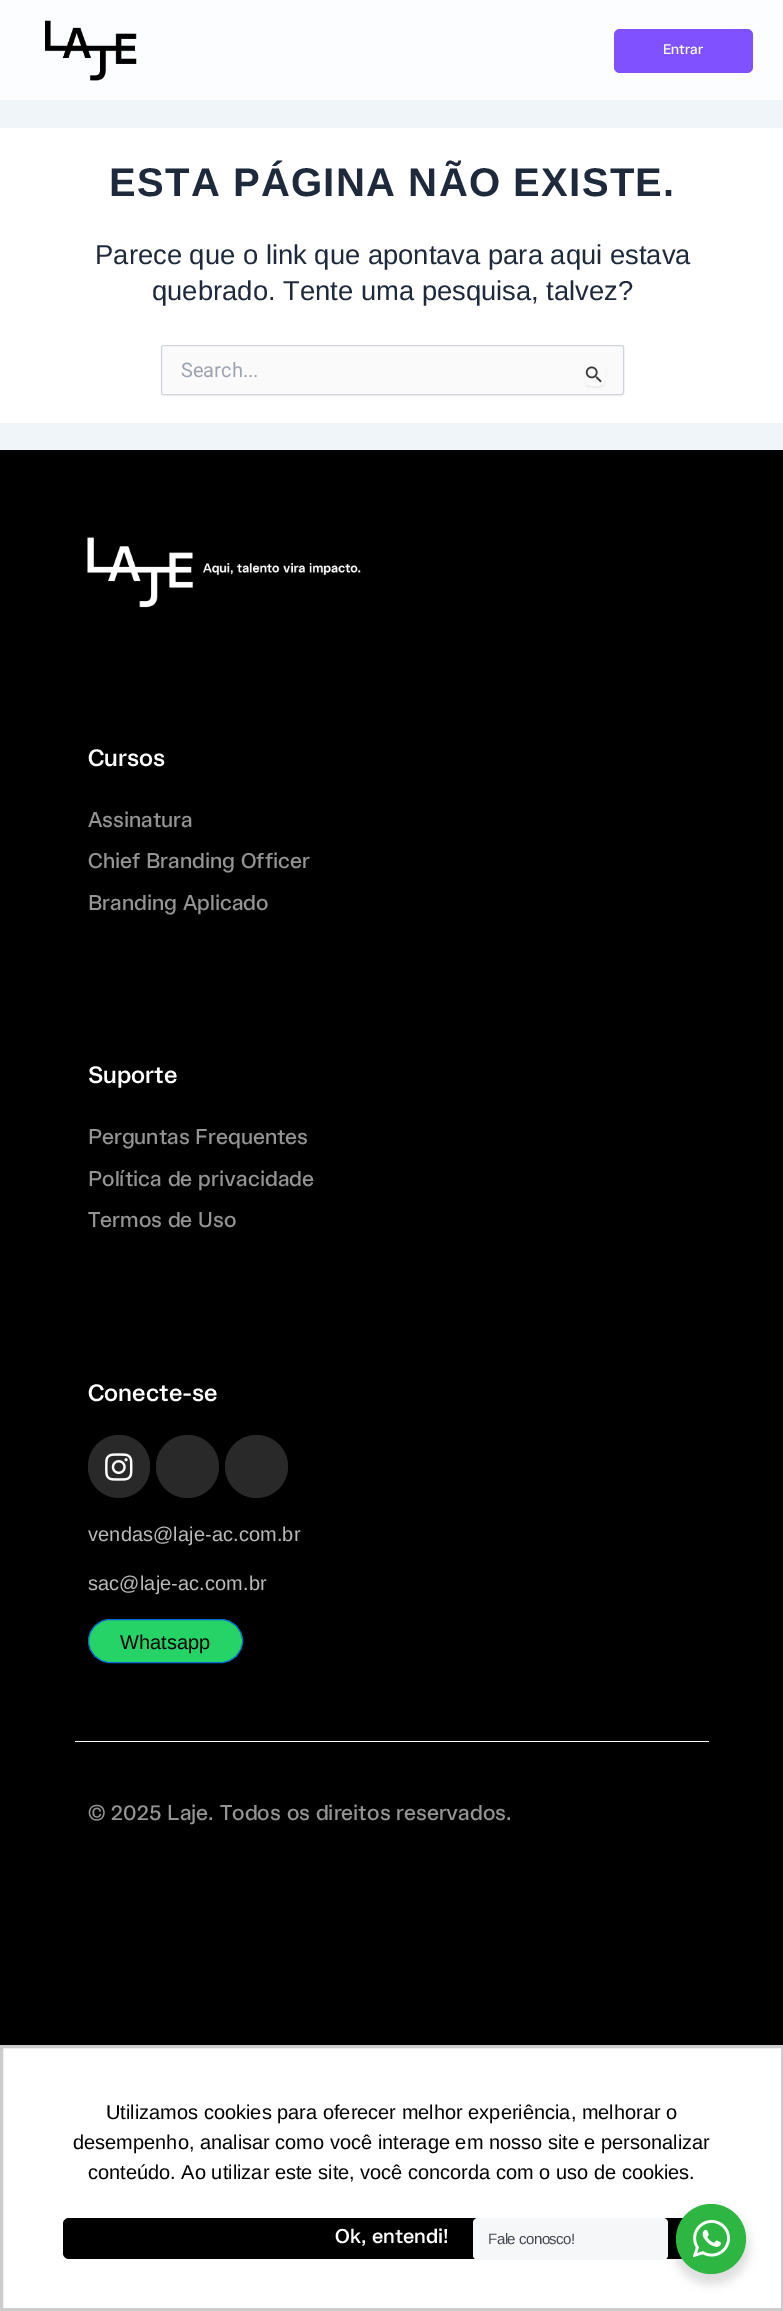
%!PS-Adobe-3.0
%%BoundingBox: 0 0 783 2311
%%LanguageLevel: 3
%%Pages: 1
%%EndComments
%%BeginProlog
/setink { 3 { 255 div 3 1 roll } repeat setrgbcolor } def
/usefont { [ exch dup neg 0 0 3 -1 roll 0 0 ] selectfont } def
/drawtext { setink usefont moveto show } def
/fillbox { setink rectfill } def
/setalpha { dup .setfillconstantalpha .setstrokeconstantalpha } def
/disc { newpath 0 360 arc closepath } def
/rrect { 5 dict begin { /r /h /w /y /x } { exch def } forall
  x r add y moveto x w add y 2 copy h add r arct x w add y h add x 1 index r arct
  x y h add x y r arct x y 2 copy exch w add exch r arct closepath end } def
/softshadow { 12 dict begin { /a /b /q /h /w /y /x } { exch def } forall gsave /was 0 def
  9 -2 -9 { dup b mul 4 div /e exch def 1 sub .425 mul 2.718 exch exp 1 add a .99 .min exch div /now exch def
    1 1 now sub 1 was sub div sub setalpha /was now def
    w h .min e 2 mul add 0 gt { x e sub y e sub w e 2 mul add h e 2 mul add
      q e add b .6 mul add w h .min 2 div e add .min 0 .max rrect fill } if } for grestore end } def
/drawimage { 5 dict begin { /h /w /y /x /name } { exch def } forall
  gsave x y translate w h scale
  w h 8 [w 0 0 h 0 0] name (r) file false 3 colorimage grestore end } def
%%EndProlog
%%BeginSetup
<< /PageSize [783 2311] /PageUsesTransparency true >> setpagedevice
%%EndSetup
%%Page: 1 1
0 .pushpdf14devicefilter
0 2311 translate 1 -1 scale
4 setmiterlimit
0 0 783 2311 240 245 250 fillbox
0 0 783 100 252 253 254 fillbox
(assets/img1.rgb) 45 20 92 61 drawimage
128 82 255 setink
614 29 139 44 6 rrect fill
(Entrar) 663 54 /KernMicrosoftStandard-Medium 14 255 255 255 drawtext
0 128 783 295 255 255 255 fillbox
/LiberationSans-Bold 40 usefont
30 41 59 setink
109 196 moveto 1.25 0 (ESTA PÁGINA NÃO EXISTE.) ashow
(Parece que o link que apontava para aqui estava) 95 264 /LiberationSans-Regular 27.4 30 41 59 drawtext
(quebrado. Tente uma pesquisa, talvez?) 152 300 /LiberationSans-Regular 27.4 30 41 59 drawtext
0 0 0 setink
161 346 463 50 2.5 1 0.05 softshadow
250 250 250 setink
161.5 345.5 462 49 2 rrect gsave fill grestore
209 213 219 setink
stroke
(Search...) 181 377 /Roboto-Regular 20 156 163 175 drawtext
gsave
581 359 moveto 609 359 lineto 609 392 lineto 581 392 lineto closepath 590 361 moveto 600 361 lineto 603 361 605 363 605 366 curveto 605 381 lineto 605 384 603 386 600 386 curveto 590 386 lineto 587 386 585 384 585 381 curveto 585 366 lineto 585 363 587 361 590 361 curveto closepath eoclip newpath
0 0 0 setink
585 363 20 25 5 1 0.05 softshadow
grestore
(assets/img2.rgb) 585 366 17 17 drawimage
0 450 783 1595 0 0 0 fillbox
(assets/img3.rgb) 87 537 274 71 drawimage
(Cursos) 88 766 /KernMicrosoftStandard-Bold 23.75 255 255 255 drawtext
(Assinatura) 88 827 /KernMicrosoftStandard-Medium 21.25 148 148 148 drawtext
(Chief Branding Officer) 88 868 /KernMicrosoftStandard-Medium 21.25 148 148 148 drawtext
(Branding Aplicado) 88 910 /KernMicrosoftStandard-Medium 21.25 148 148 148 drawtext
(Suporte) 88 1083 /KernMicrosoftStandard-Bold 23.75 255 255 255 drawtext
(Perguntas Frequentes) 88 1144 /KernMicrosoftStandard-Medium 21.25 148 148 148 drawtext
(Política de privacidade) 88 1186 /KernMicrosoftStandard-Medium 21.25 148 148 148 drawtext
(Termos de Uso) 88 1227 /KernMicrosoftStandard-Medium 21.25 148 148 148 drawtext
(Conecte-se) 88 1401 /KernMicrosoftStandard-Bold 23.75 255 255 255 drawtext
42 41 41 setink
88 1435 62 63 31 rrect fill
(assets/img4.rgb) 105 1453 28 28 drawimage
187.5 1466.5 31.5 disc fill
256.5 1466.5 31.5 disc fill
/LiberationSans-Regular 20 usefont
186 186 186 setink
88 1541 moveto 0.1 0 (vendas@laje-ac.com.br) ashow
88 1590 moveto 0.1 0 (sac@laje-ac.com.br) ashow
37 211 102 setink
88.5 1619.5 154 43 21.5 rrect gsave fill grestore
4 107 210 setink
stroke
(Whatsapp) 120 1649 /LiberationSans-Regular 20 0 0 0 drawtext
75 1741 634 1 255 255 255 fillbox
(© 2025 Laje. Todos os direitos reservados.) 88 1820 /KernMicrosoftStandard-Medium 21.25 148 148 148 drawtext
255 255 255 setink
1.5 2046.5 moveto 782.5 2046.5 lineto 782.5 2309.5 lineto 1.5 2309.5 lineto closepath gsave fill grestore
204 204 204 setink
3 setlinewidth
stroke
(Utilizamos cookies para oferecer melhor experiência, melhorar o) 106 2119 /LiberationSans-Regular 20 0 0 0 drawtext
(desempenho, analisar como você interage em nosso site e personalizar) 73 2149 /LiberationSans-Regular 20 0 0 0 drawtext
(conteúdo. Ao utilizar este site, você concorda com o uso de cookies.) 88 2179 /LiberationSans-Regular 20 0 0 0 drawtext
63 2218 658 41 6 rrect fill
(Ok, entendi!) 335 2243 /KernMicrosoftStandard-Bold 20 255 255 255 drawtext
0 0 0 setink
674 2209 75 75 37.5 5 0.14 softshadow
245 247 249 setink
473 2218 195 42 5 rrect fill
/LiberationSans-Regular 15 usefont
67 71 78 setink
488 2244 moveto -0.5 0 (Fale conosco!) ashow
45 183 66 setink
711 2239 35 disc fill
(assets/img5.rgb) 693 2220 37 38 drawimage
.poppdf14devicefilter showpage
%%EOF
